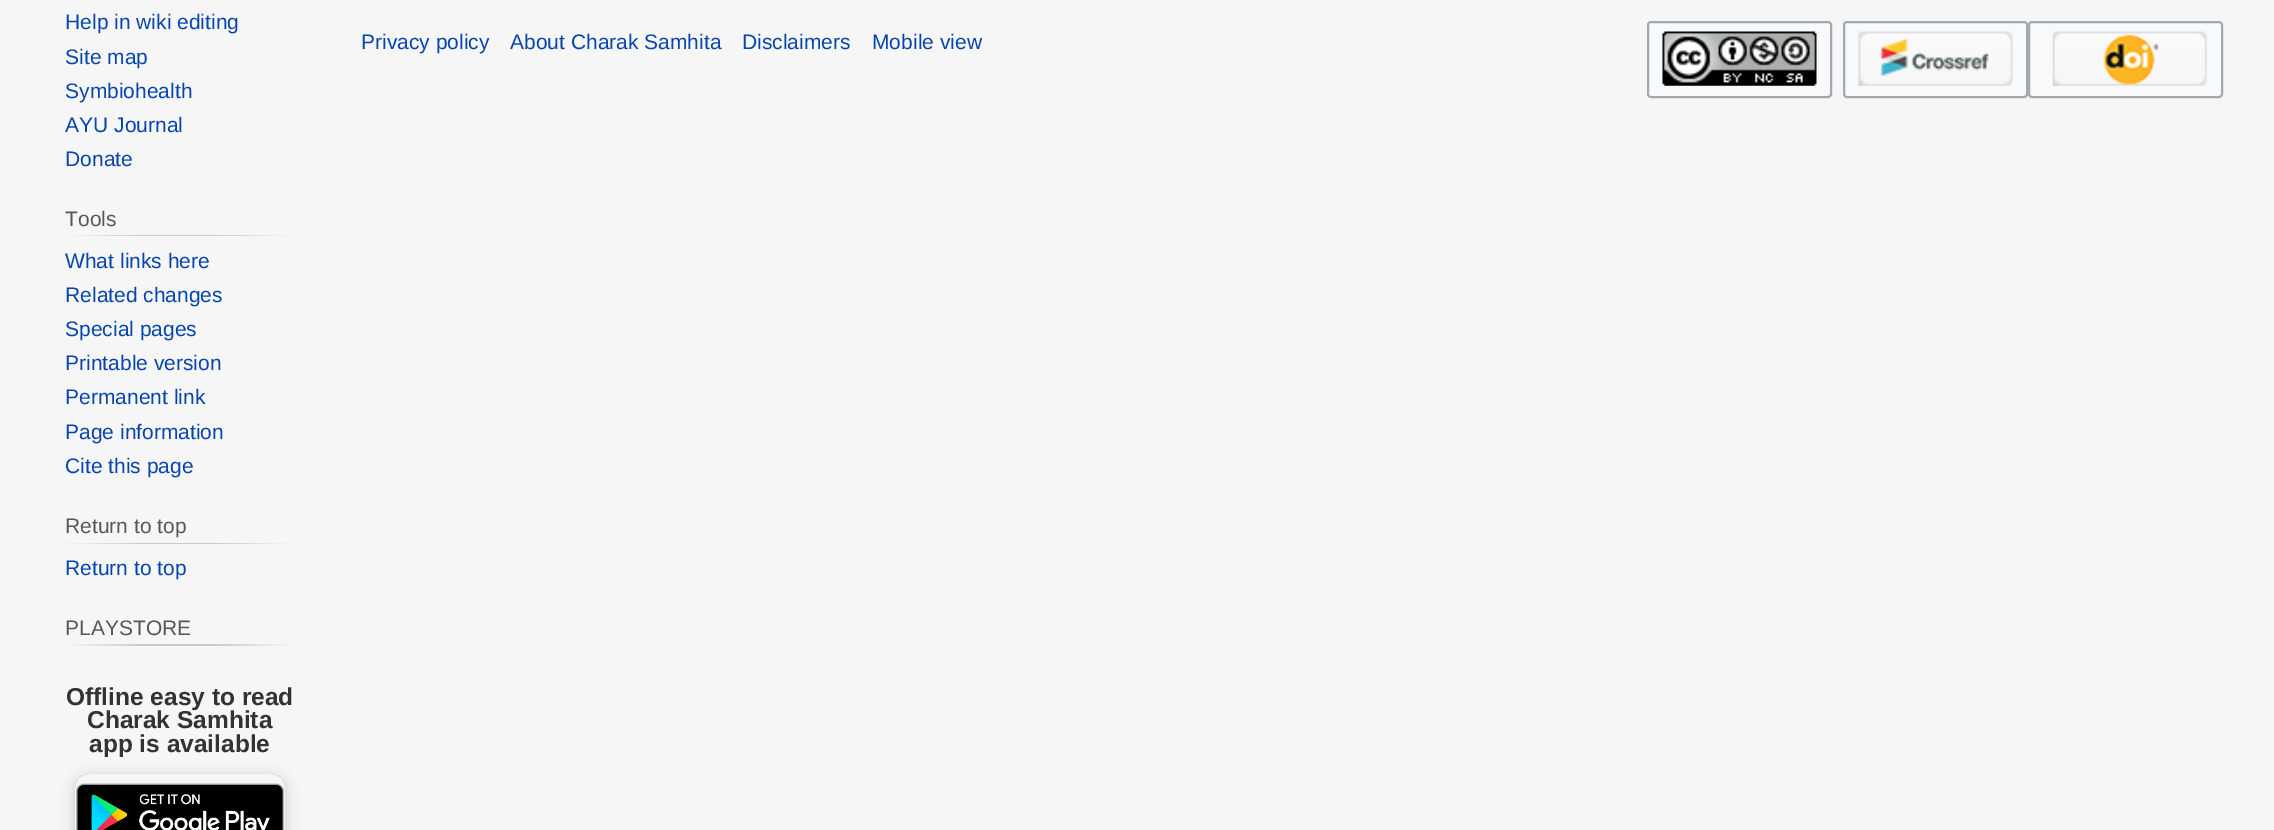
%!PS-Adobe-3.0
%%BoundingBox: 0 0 2274 830
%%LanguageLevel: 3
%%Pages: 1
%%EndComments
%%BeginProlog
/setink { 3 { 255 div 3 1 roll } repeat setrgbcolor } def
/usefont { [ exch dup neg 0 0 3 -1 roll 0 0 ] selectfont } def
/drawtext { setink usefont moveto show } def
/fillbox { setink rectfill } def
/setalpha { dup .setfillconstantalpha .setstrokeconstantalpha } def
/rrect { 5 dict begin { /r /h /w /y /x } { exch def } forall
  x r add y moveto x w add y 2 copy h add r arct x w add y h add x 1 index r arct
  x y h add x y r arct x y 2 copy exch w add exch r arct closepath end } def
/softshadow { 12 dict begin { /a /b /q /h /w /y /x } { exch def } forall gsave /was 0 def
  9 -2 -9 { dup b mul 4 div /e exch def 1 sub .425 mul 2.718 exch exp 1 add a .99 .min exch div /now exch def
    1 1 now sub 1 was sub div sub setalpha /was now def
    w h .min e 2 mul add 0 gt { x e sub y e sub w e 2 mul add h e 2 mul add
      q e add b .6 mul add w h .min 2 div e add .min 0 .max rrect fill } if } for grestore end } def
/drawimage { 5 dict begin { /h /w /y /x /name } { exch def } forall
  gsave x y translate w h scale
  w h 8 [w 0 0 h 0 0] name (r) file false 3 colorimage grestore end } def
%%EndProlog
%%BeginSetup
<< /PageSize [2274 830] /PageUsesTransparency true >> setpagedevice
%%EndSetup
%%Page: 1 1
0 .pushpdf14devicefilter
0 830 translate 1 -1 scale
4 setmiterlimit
0 0 2274 830 246 246 246 fillbox
(Help in wiki editing) 65 29 /LiberationSans-Regular 21 6 69 173 drawtext
(Site map) 65 64 /LiberationSans-Regular 21 6 69 173 drawtext
(Symbiohealth) 65 98 /LiberationSans-Regular 21 6 69 173 drawtext
(AYU Journal) 65 132 /LiberationSans-Regular 21 6 69 173 drawtext
(Donate) 65 166 /LiberationSans-Regular 21 6 69 173 drawtext
gsave 65 235 moveto 294 235 lineto 294 236 lineto 65 236 lineto closepath clip newpath
<< /ShadingType 2 /ColorSpace /DeviceRGB /Coords [65 235 294 235] /Extend [true true] /Function << /FunctionType 3 /Domain [0 1] /Functions [<< /FunctionType 2 /Domain [0 1] /C0 [0.965 0.965 0.965] /C1 [0.784 0.8 0.82] /N 1 >> << /FunctionType 2 /Domain [0 1] /C0 [0.784 0.8 0.82] /C1 [0.784 0.8 0.82] /N 1 >> << /FunctionType 2 /Domain [0 1] /C0 [0.784 0.8 0.82] /C1 [0.965 0.965 0.965] /N 1 >>] /Bounds [0.33 0.66] /Encode [0 1 0 1 0 1] >> >> shfill grestore
(Tools) 65 226 /LiberationSans-Regular 21 84 89 93 drawtext
(What links here) 65 268 /LiberationSans-Regular 21 6 69 173 drawtext
(Related changes) 65 302 /LiberationSans-Regular 21 6 69 173 drawtext
(Special pages) 65 336 /LiberationSans-Regular 21 6 69 173 drawtext
(Printable version) 65 370 /LiberationSans-Regular 21 6 69 173 drawtext
(Permanent link) 65 404 /LiberationSans-Regular 21 6 69 173 drawtext
(Page information) 65 439 /LiberationSans-Regular 21 6 69 173 drawtext
(Cite this page) 65 473 /LiberationSans-Regular 21 6 69 173 drawtext
gsave 65 543 moveto 294 543 lineto 294 544 lineto 65 544 lineto closepath clip newpath
<< /ShadingType 2 /ColorSpace /DeviceRGB /Coords [65 543 294 543] /Extend [true true] /Function << /FunctionType 3 /Domain [0 1] /Functions [<< /FunctionType 2 /Domain [0 1] /C0 [0.965 0.965 0.965] /C1 [0.784 0.8 0.82] /N 1 >> << /FunctionType 2 /Domain [0 1] /C0 [0.784 0.8 0.82] /C1 [0.784 0.8 0.82] /N 1 >> << /FunctionType 2 /Domain [0 1] /C0 [0.784 0.8 0.82] /C1 [0.965 0.965 0.965] /N 1 >>] /Bounds [0.33 0.66] /Encode [0 1 0 1 0 1] >> >> shfill grestore
(Return to top) 65 533 /LiberationSans-Regular 21 84 89 93 drawtext
(Return to top) 65 575 /LiberationSans-Regular 21 6 69 173 drawtext
gsave 65 644 moveto 294 644 lineto 294 646 lineto 65 646 lineto closepath clip newpath
<< /ShadingType 2 /ColorSpace /DeviceRGB /Coords [65 645 294 645] /Extend [true true] /Function << /FunctionType 3 /Domain [0 1] /Functions [<< /FunctionType 2 /Domain [0 1] /C0 [0.965 0.965 0.965] /C1 [0.784 0.8 0.82] /N 1 >> << /FunctionType 2 /Domain [0 1] /C0 [0.784 0.8 0.82] /C1 [0.784 0.8 0.82] /N 1 >> << /FunctionType 2 /Domain [0 1] /C0 [0.784 0.8 0.82] /C1 [0.965 0.965 0.965] /N 1 >>] /Bounds [0.33 0.66] /Encode [0 1 0 1 0 1] >> >> shfill grestore
(PLAYSTORE) 65 635 /LiberationSans-Regular 21 84 89 93 drawtext
(Offline easy to read) 66 705 /LiberationSans-Bold 24.5 51 51 51 drawtext
(Charak Samhita) 87 728 /LiberationSans-Bold 24.5 51 51 51 drawtext
(app is available) 89 752 /LiberationSans-Bold 24.5 51 51 51 drawtext
gsave
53 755 moveto 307 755 lineto 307 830 lineto 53 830 lineto closepath 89 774 moveto 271 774 lineto 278.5 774 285 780.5 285 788 curveto 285 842 lineto 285 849.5 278.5 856 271 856 curveto 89 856 lineto 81.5 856 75 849.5 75 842 curveto 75 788 lineto 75 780.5 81.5 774 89 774 curveto closepath eoclip newpath
0 0 0 setink
75 777 210 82 14 7 0.2 softshadow
grestore
(assets/img1.rgb) 76 783 208 47 drawimage
(Privacy policy) 361 49 /LiberationSans-Regular 21 6 69 173 drawtext
(About Charak Samhita) 510 49 /LiberationSans-Regular 21 6 69 173 drawtext
(Disclaimers) 742 49 /LiberationSans-Regular 21 6 69 173 drawtext
(Mobile view) 872 49 /LiberationSans-Regular 21 6 69 173 drawtext
248 249 250 setink
1648 22 183 75 3 rrect gsave fill grestore
162 169 177 setink
2 setlinewidth
stroke
(assets/img2.rgb) 1662 31 155 55 drawimage
248 249 250 setink
1844 22 183 75 3 rrect gsave fill grestore
162 169 177 setink
stroke
(assets/img3.rgb) 1858 31 155 55 drawimage
248 249 250 setink
2029 22 193 75 3 rrect gsave fill grestore
162 169 177 setink
stroke
(assets/img4.rgb) 2052 31 155 55 drawimage
.poppdf14devicefilter showpage
%%EOF
